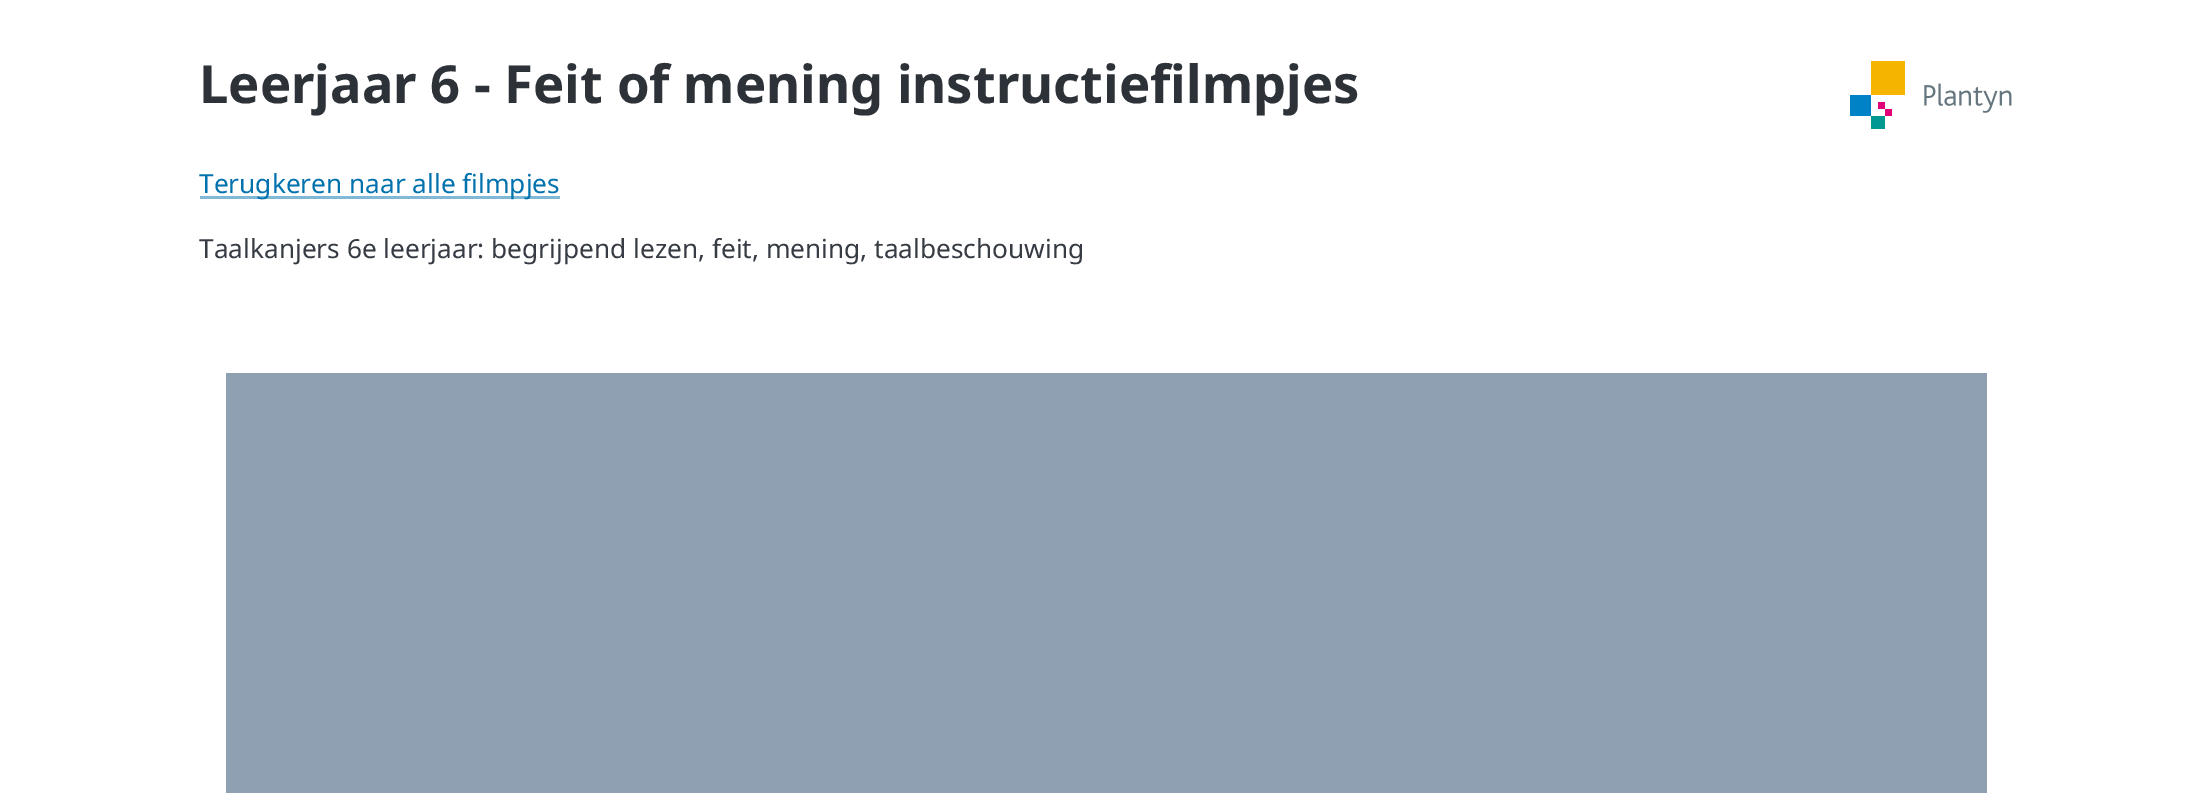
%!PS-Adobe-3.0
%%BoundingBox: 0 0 2211 793
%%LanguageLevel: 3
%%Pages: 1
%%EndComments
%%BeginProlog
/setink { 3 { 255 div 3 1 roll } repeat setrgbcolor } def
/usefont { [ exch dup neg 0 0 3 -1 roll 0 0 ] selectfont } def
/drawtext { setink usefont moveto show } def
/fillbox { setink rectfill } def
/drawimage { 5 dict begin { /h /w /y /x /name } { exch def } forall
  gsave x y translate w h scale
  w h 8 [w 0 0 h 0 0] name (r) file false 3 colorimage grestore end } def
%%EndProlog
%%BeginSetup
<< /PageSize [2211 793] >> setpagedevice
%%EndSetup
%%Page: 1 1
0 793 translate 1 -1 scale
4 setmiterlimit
0 0 2211 793 255 255 255 fillbox
(Leerjaar 6 - Feit of mening instructiefilmpjes) 199 103 /NotoSans-Bold 52.5 45 49 56 drawtext
(assets/img1.rgb) 1850 61 162 68 drawimage
200 196 360 3 128 184 214 fillbox
(Terugkeren naar alle filmpjes) 199 193 /NotoSans-Regular 26.25 1 114 173 drawtext
(Taalkanjers 6e leerjaar: begrijpend lezen, feit, mening, taalbeschouwing) 199 258 /NotoSans-Regular 26.25 55 60 68 drawtext
226 373 1761 420 144 160 179 fillbox
showpage
%%EOF
